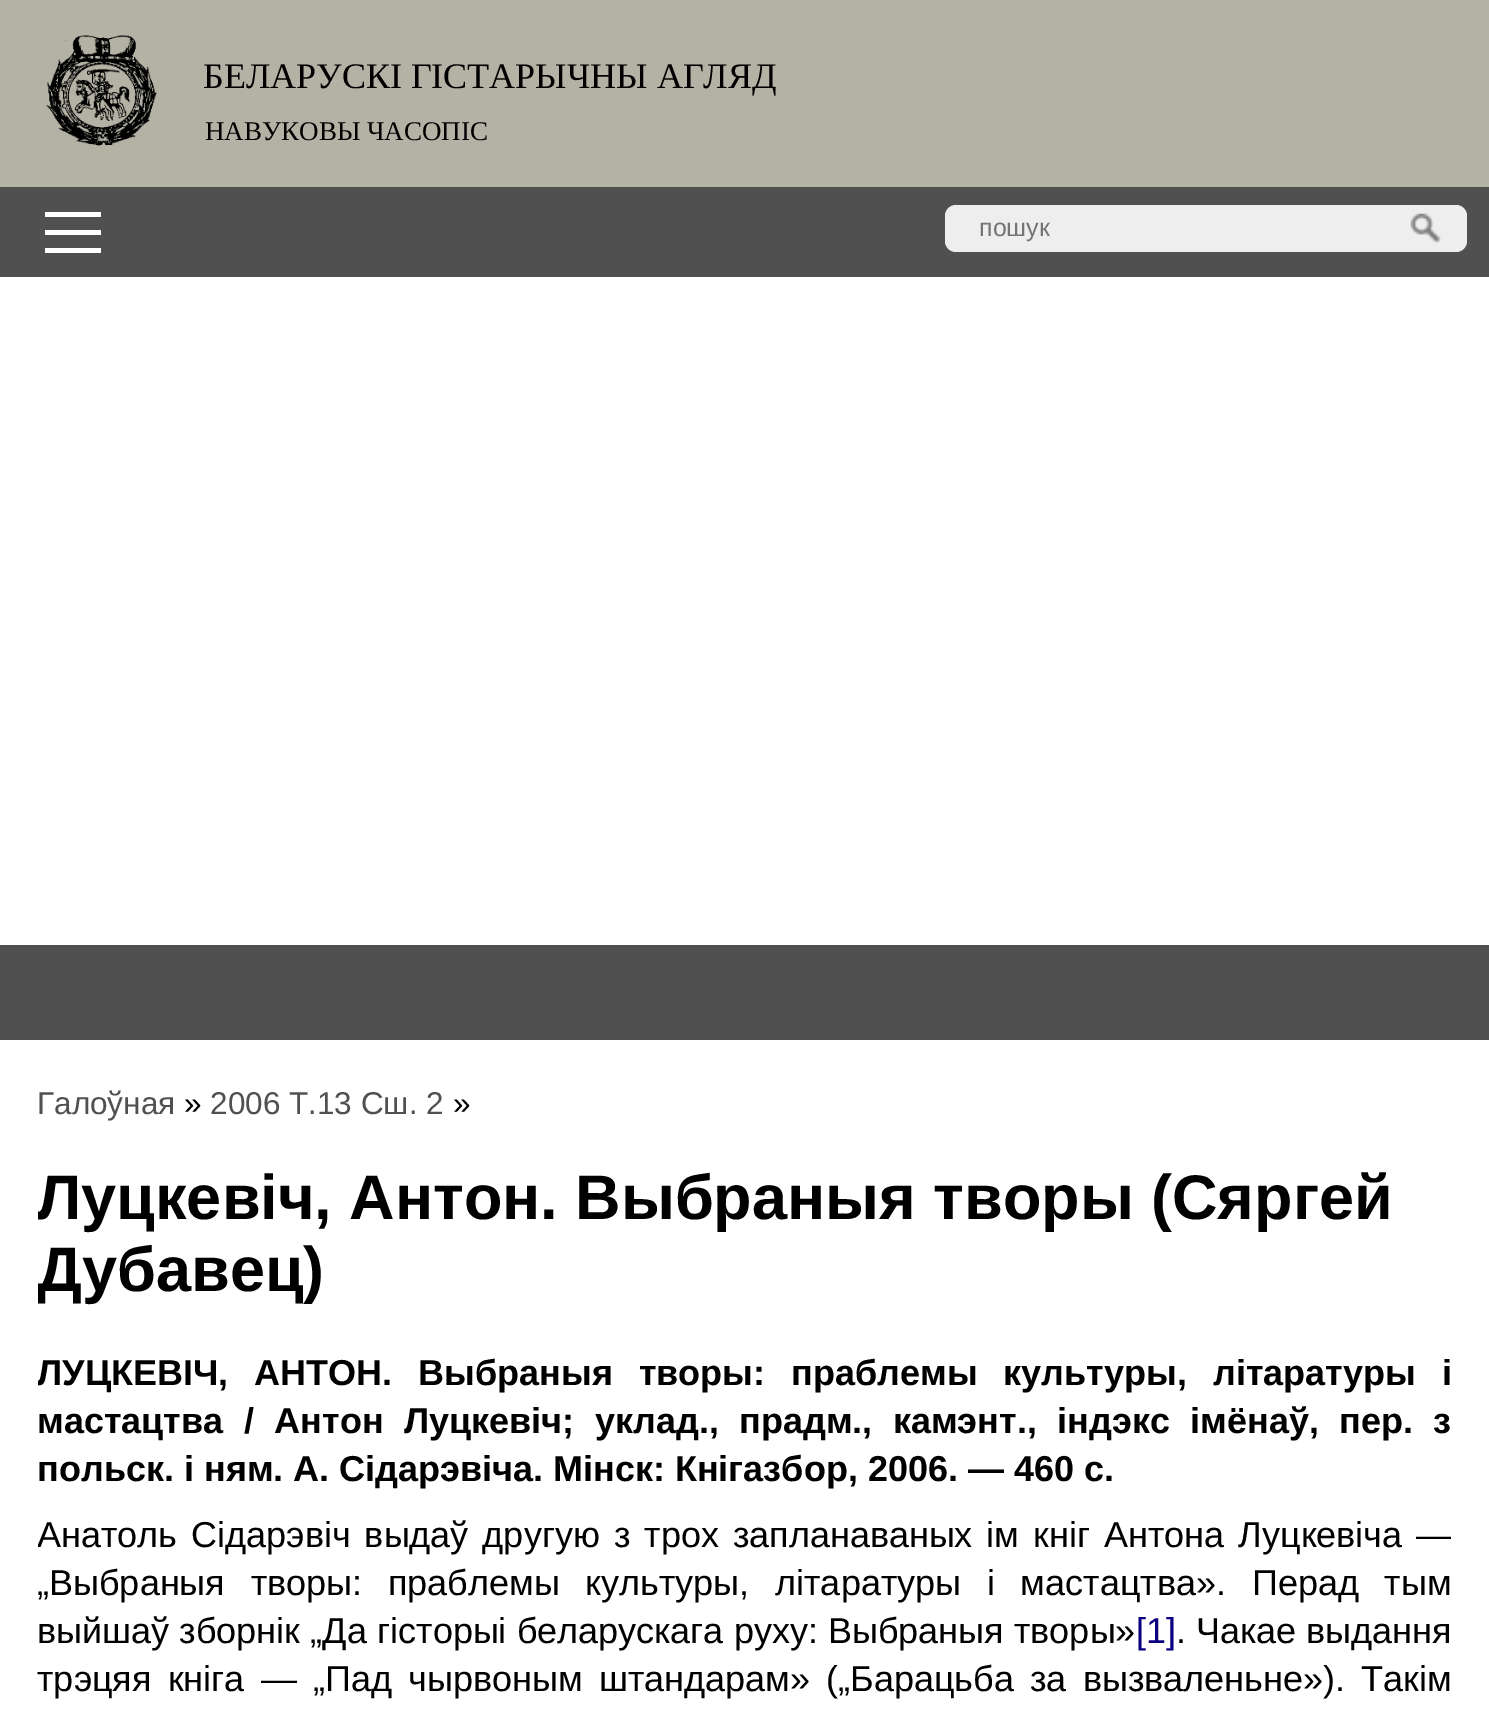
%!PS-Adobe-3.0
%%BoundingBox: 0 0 1489 1710
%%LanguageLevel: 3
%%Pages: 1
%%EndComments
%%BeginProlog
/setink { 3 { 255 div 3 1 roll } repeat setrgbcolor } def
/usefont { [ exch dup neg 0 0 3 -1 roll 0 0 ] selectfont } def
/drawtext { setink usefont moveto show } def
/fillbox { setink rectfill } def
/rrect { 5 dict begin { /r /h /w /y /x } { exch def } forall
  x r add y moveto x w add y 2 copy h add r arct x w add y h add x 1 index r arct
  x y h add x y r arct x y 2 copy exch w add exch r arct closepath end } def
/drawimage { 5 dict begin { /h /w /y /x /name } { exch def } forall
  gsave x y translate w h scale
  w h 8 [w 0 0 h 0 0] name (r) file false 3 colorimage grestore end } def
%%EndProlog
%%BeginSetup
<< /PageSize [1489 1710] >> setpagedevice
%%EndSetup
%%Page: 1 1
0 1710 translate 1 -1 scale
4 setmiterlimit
0 0 1489 1710 255 255 255 fillbox
0 0 1489 187 180 178 164 fillbox
(assets/img1.rgb) 46 35 111 111 drawimage
(БЕЛАРУСКІ ГІСТАРЫЧНЫ АГЛЯД) 203 88 /LiberationSerif-Regular 36 0 0 0 drawtext
(НАВУКОВЫ ЧАСОПІС) 205 140 /LiberationSerif-Regular 27 0 0 0 drawtext
0 187 1489 90 80 80 80 fillbox
45 230 56 5 255 255 255 fillbox
45 212 56 5 255 255 255 fillbox
45 248 56 5 255 255 255 fillbox
238 238 238 setink
945 205 522 47 11 rrect fill
(пошук) 979 236 /LiberationSans-Regular 25 117 117 117 drawtext
(assets/img2.rgb) 1410 213 31 30 drawimage
0 945 1489 95 80 80 80 fillbox
(Галоўная) 37 1114 /LiberationSans-Regular 31.5 80 80 80 drawtext
(») 184 1114 /LiberationSans-Regular 31.5 0 0 0 drawtext
(2006 Т.13 Сш. 2) 210 1114 /LiberationSans-Regular 31.5 80 80 80 drawtext
(») 453 1114 /LiberationSans-Regular 31.5 0 0 0 drawtext
gsave
38 1085 1413 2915 rectclip
(Луцкевіч, Антон. Выбраныя творы \(Сяргей) 37 1219 /LiberationSans-Bold 63 0 0 0 drawtext
(Дубавец\)) 37 1291 /LiberationSans-Bold 63 0 0 0 drawtext
/LiberationSans-Bold 36 usefont
37 1385 moveto 16 0 32 (ЛУЦКЕВІЧ, АНТОН. Выбраныя творы: праблемы культуры, літаратуры i) widthshow
grestore
/LiberationSans-Bold 36 usefont
37 1433 moveto 10.5 0 32 (мастацтва / Антон Луцкевіч; уклад., прадм., камэнт., індэкс імёнаў, пер. з) widthshow
(польск. i ням. А. Сідарэвіча. Мінск: Кнігазбор, 2006. — 460 с.) 37 1481 /LiberationSans-Bold 36 0 0 0 drawtext
gsave
38 1085 1413 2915 rectclip
/LiberationSans-Regular 36 usefont
37 1547 moveto 4 0 32 (Анатоль Сідарэвіч выдаў другую з трох запланаваных ім кніг Антона Луцкевіча —) widthshow
grestore
/LiberationSans-Regular 36 usefont
37 1595 moveto 15.75 0 32 („Выбраныя творы: праблемы культуры, літаратуры i мастацтва». Перад тым) widthshow
37 1643 moveto 0.25 0 32 (выйшаў зборнік „Да гісторыі беларускага руху: Выбраныя творы») widthshow
([1]) 1136 1643 /LiberationSans-Regular 36 11 0 128 drawtext
0 0 0 setink
1176 1643 moveto 0.25 0 32 (. Чакае выдання) widthshow
37 1691 moveto 6.25 0 32 (трэцяя кніга — „Пад чырвоным штандарам» \(„Барацьба за вызваленьне»\). Такім) widthshow
showpage
%%EOF
